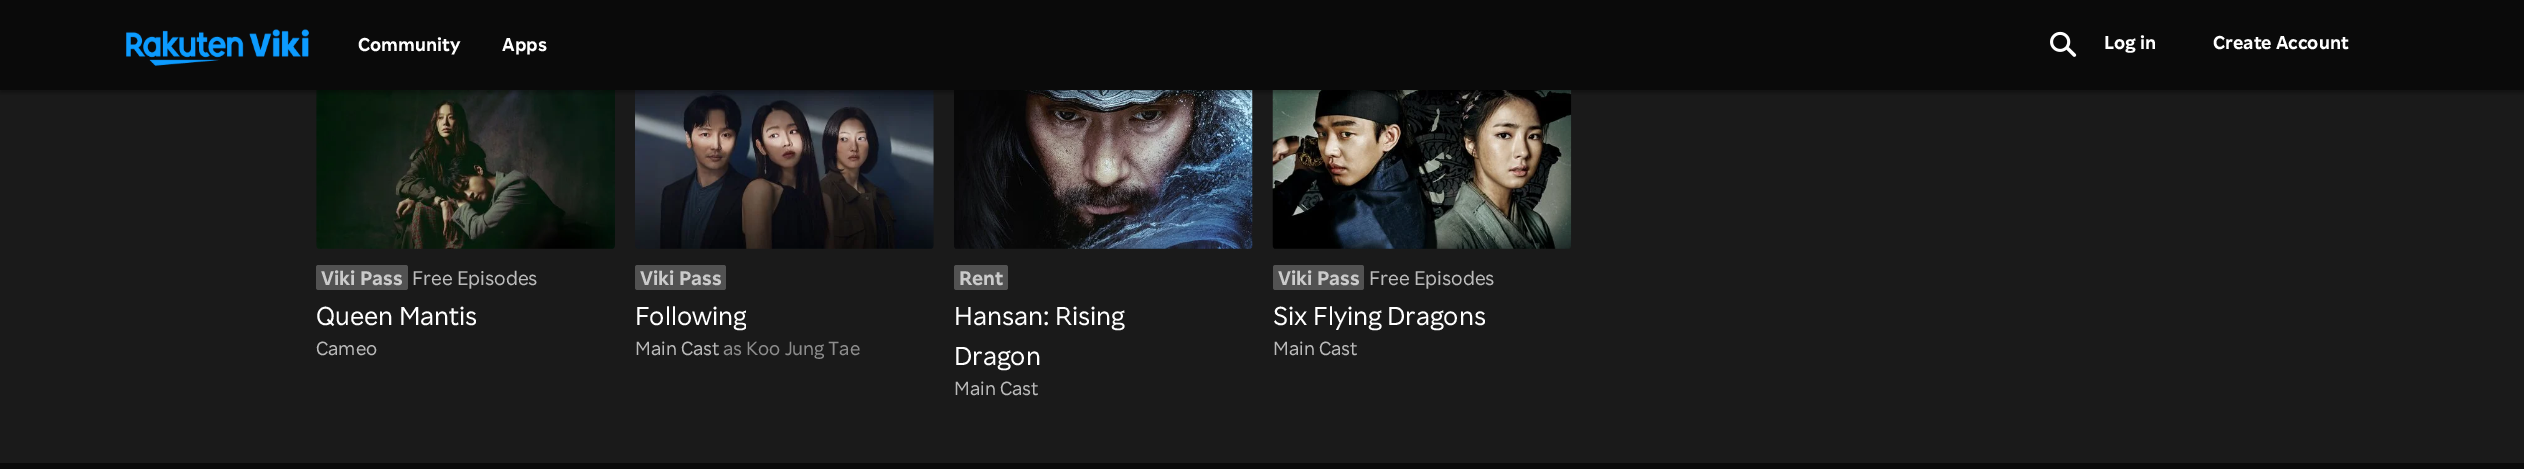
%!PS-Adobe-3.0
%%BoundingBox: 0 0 2524 469
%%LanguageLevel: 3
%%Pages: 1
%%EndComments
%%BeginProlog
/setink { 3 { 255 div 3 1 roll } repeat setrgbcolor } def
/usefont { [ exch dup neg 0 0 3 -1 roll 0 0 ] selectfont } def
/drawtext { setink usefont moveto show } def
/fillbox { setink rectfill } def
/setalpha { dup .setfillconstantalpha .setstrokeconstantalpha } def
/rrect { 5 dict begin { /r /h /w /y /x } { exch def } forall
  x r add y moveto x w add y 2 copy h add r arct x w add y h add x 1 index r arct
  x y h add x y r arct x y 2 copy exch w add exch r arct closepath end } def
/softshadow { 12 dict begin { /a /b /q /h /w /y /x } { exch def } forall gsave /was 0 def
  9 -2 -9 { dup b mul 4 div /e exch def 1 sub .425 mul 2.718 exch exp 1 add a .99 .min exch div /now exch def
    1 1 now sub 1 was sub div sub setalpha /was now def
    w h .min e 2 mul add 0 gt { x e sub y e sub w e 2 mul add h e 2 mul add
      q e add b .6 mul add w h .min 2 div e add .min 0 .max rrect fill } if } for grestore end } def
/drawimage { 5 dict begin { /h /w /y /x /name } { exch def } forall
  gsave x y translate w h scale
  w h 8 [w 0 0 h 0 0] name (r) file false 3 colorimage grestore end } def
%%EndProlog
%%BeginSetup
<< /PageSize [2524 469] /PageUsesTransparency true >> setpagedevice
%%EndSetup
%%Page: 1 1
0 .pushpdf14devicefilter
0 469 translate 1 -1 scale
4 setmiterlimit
0 0 2524 469 26 26 26 fillbox
(assets/img3.rgb) 316 90 299 159 drawimage
(assets/img4.rgb) 635 90 299 159 drawimage
(assets/img5.rgb) 954 90 299 159 drawimage
(assets/img6.rgb) 1272 90 300 159 drawimage
0 0 0 setink
0 3 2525 90 0 2 0.3 softshadow
0 0 2524 90 10 10 10 fillbox
(assets/img1.rgb) 126 29 183 37 drawimage
(Community) 358 51 /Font-Bold 18.75 255 255 255 drawtext
(Apps) 502 51 /Font-Bold 18.75 255 255 255 drawtext
(assets/img2.rgb) 2050 31 27 26 drawimage
(Log in) 2104 49 /Font-Bold 18.75 255 255 255 drawtext
(Create Account) 2213 49 /Font-Bold 18.75 255 255 255 drawtext
82 82 82 setink
316 265 92 25 2.5 rrect fill
(Viki Pass) 321 285 /Font-Bold 20 203 203 203 drawtext
(Free Episodes) 412 285 /Font-Regular 20 186 186 186 drawtext
(Queen Mantis) 316 325 /Font-Regular 26.25 255 255 255 drawtext
(Cameo) 316 355 /Font-Regular 19.25 186 186 186 drawtext
82 82 82 setink
635 265 91 25 2.5 rrect fill
(Viki Pass) 640 285 /Font-Bold 20 203 203 203 drawtext
gsave
635 295 111 40 rectclip
(Following) 635 325 /Font-Regular 26.25 255 255 255 drawtext
grestore
(Main Cast) 635 355 /Font-Regular 19.25 186 186 186 drawtext
(as Koo Jung Tae) 723 355 /Font-Regular 19.25 141 141 141 drawtext
82 82 82 setink
954 265 54 25 2.5 rrect fill
(Rent) 959 285 /Font-Bold 20 203 203 203 drawtext
(Hansan: Rising) 954 325 /Font-Regular 26.25 255 255 255 drawtext
(Dragon) 954 365 /Font-Regular 26.25 255 255 255 drawtext
(Main Cast) 954 395 /Font-Regular 19.25 186 186 186 drawtext
82 82 82 setink
1273 265 91 25 2.5 rrect fill
(Viki Pass) 1278 285 /Font-Bold 20 203 203 203 drawtext
(Free Episodes) 1369 285 /Font-Regular 20 186 186 186 drawtext
(Six Flying Dragons) 1273 325 /Font-Regular 26.25 255 255 255 drawtext
(Main Cast) 1273 355 /Font-Regular 19.25 186 186 186 drawtext
0 463 2524 6 10 10 10 fillbox
.poppdf14devicefilter showpage
%%EOF
